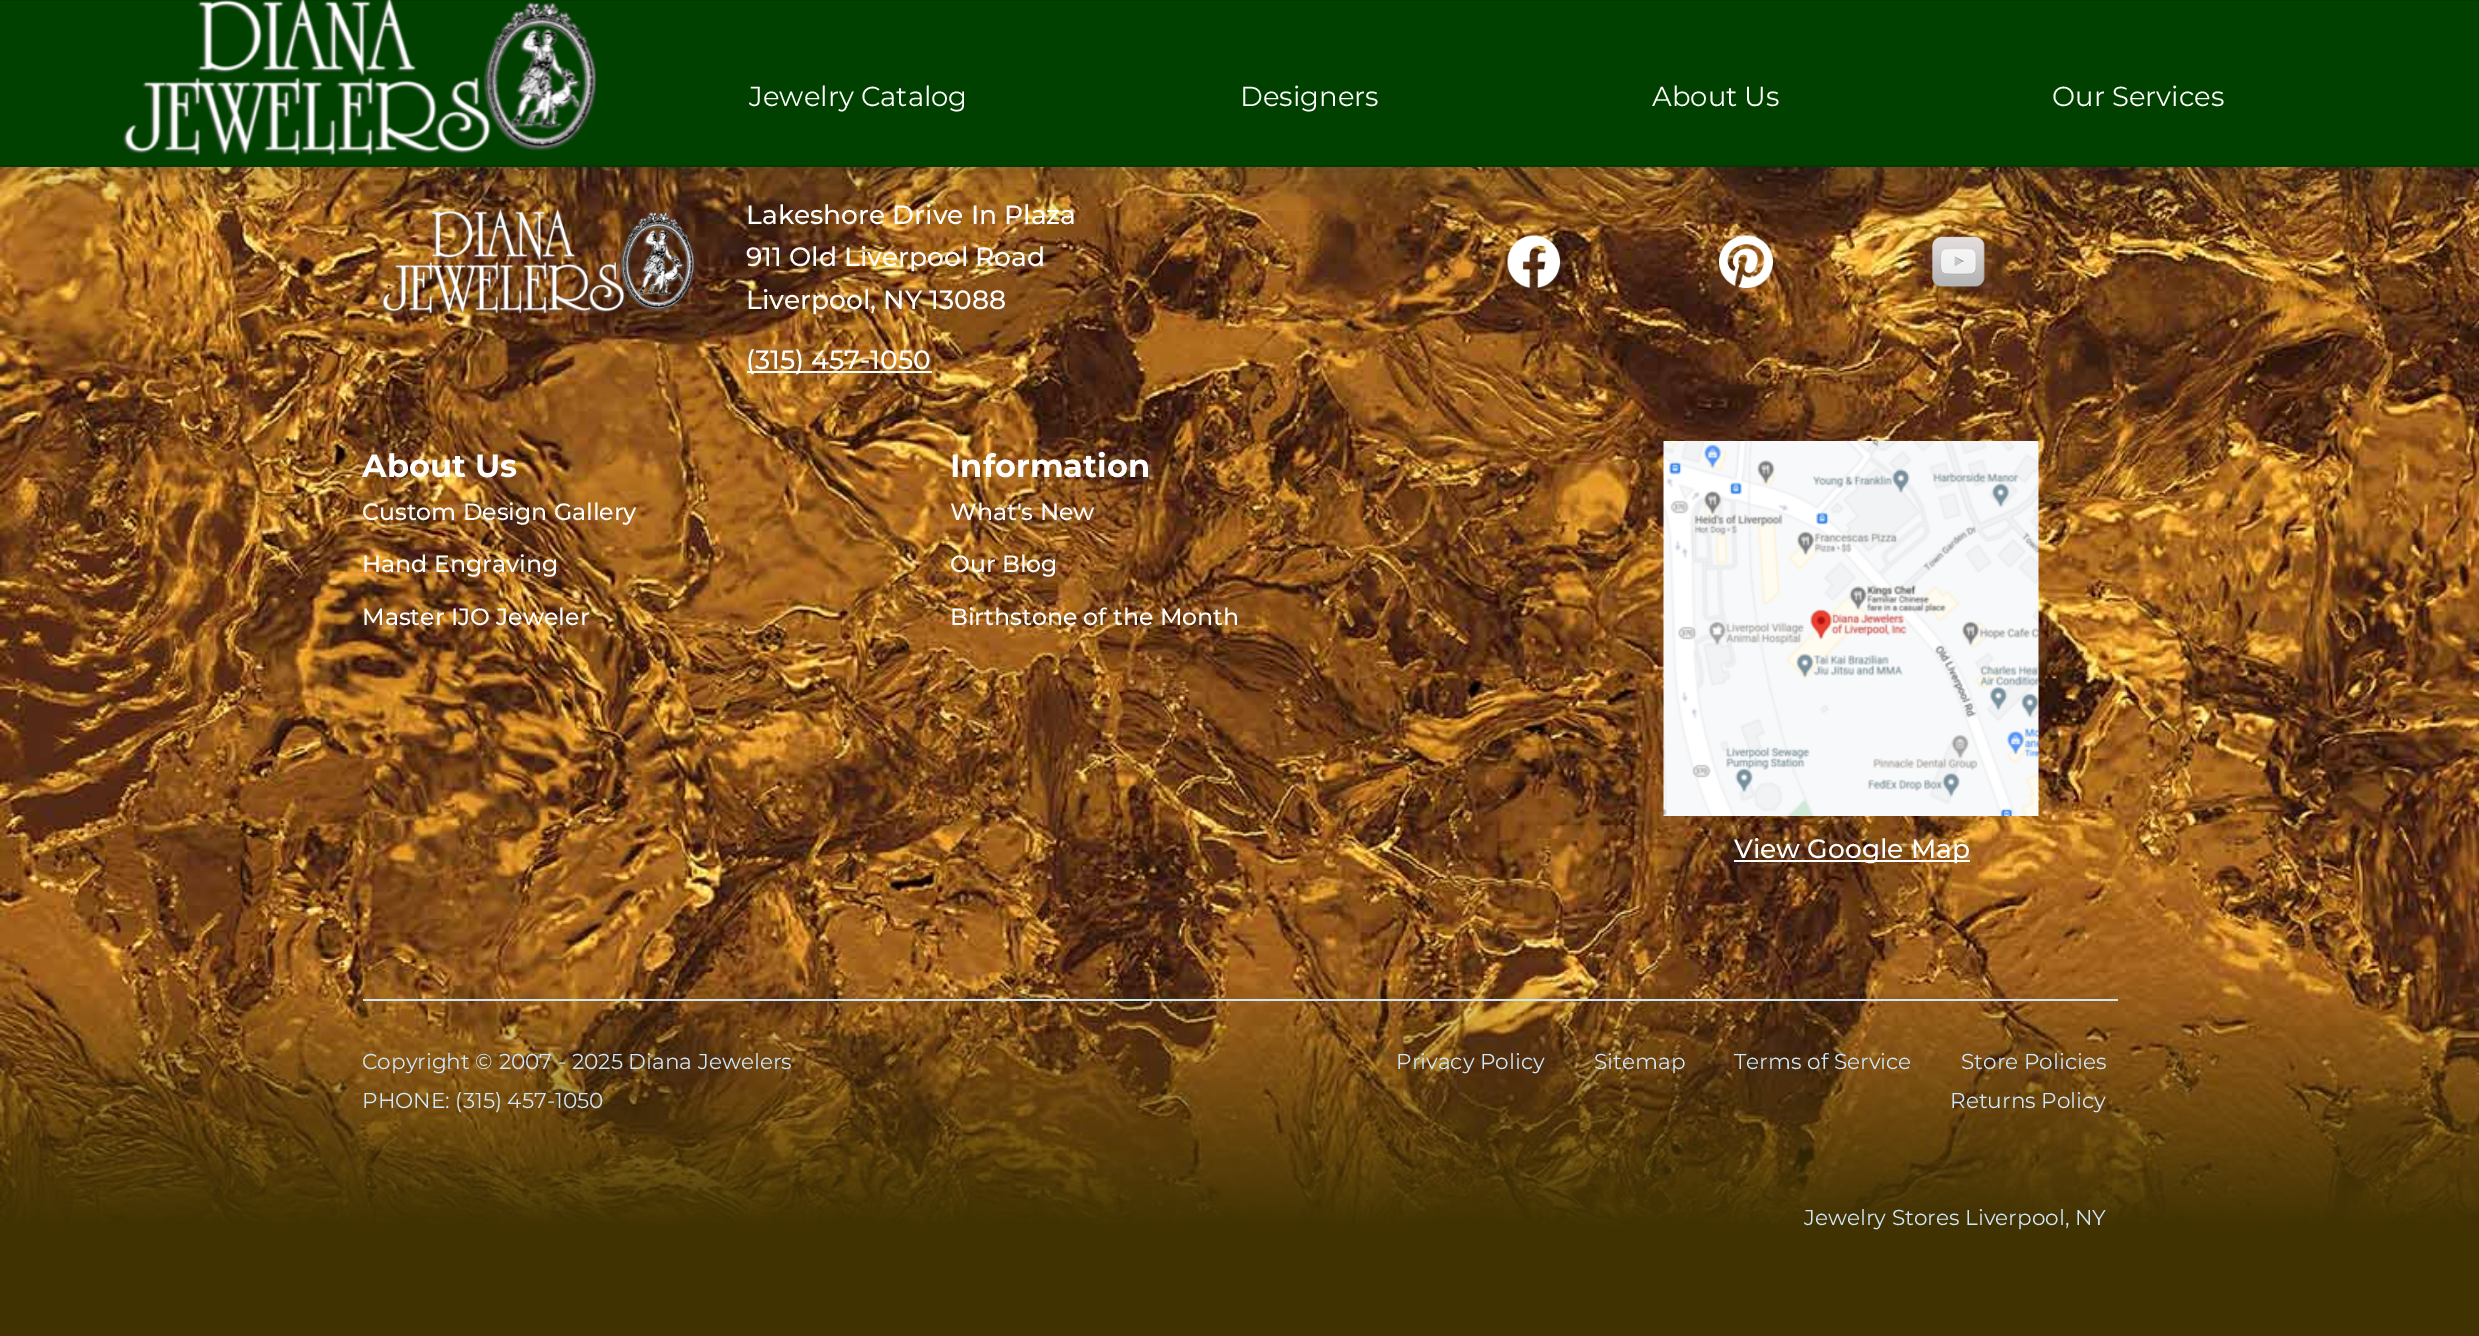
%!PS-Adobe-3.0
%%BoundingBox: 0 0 2479 1336
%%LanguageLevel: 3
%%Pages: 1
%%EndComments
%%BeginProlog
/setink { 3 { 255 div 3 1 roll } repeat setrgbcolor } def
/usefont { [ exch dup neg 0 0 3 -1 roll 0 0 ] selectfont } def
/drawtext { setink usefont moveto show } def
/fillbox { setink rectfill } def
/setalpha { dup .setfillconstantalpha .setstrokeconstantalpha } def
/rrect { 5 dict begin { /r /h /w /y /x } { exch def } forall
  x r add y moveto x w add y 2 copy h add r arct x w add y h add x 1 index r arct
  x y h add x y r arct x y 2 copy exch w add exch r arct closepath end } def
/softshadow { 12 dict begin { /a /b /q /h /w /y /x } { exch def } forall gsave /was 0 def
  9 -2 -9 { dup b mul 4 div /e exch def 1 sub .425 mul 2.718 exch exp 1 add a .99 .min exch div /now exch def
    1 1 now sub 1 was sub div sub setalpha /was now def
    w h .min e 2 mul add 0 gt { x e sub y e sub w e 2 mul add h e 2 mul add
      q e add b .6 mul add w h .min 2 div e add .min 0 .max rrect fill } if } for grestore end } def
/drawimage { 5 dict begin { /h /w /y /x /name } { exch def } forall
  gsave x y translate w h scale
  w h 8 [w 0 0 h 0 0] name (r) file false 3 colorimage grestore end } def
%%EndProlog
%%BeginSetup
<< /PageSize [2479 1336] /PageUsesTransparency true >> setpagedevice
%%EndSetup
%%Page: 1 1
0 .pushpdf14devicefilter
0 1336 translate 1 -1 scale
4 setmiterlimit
0 0 2479 1336 255 255 255 fillbox
(assets/img2.rgb) 0 167 2479 1169 drawimage
(assets/img3.rgb) 381 209 314 106 drawimage
(assets/img4.rgb) 1507 235 53 53 drawimage
(assets/img5.rgb) 1719 235 54 53 drawimage
(assets/img6.rgb) 1932 236 53 51 drawimage
3 34 37 setink
0 -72 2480 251 0 24 0.25 softshadow
0 1 2479 164 0 65 0 fillbox
0 165 2479 2 2 56 2 fillbox
0 0 2479 1 2 56 2 fillbox
(assets/img1.rgb) 123 0 474 157 drawimage
(Jewelry Catalog) 749 106 /Montserrat-Regular 27.5 255 255 255 drawtext
(Designers) 1240 106 /Montserrat-Regular 27.5 255 255 255 drawtext
(About Us) 1652 106 /Montserrat-Regular 27.5 255 255 255 drawtext
(Our Services) 2052 106 /Montserrat-Regular 27.5 255 255 255 drawtext
(Lakeshore Drive In Plaza) 746 224 /Montserrat-Medium 26.5 255 255 255 drawtext
(911 Old Liverpool Road) 746 266 /Montserrat-Medium 26.5 255 255 255 drawtext
(Liverpool, NY 13088) 746 309 /Montserrat-Medium 26.5 255 255 255 drawtext
747 371 185 2 255 255 255 fillbox
(\(315\) 457-1050) 746 369 /Montserrat-Medium 26.5 255 255 255 drawtext
(About Us) 362 477 /Montserrat-Bold 32 255 255 255 drawtext
(Custom Design Gallery) 362 520 /Montserrat-Medium 23.6 255 255 255 drawtext
(Hand Engraving) 362 572 /Montserrat-Medium 23.6 255 255 255 drawtext
(Master IJO Jeweler) 362 625 /Montserrat-Medium 23.6 255 255 255 drawtext
(Information) 950 477 /Montserrat-Bold 32 255 255 255 drawtext
(What's New) 950 520 /Montserrat-Medium 23.6 255 255 255 drawtext
(Our Blog) 950 572 /Montserrat-Medium 23.6 255 255 255 drawtext
(Birthstone of the Month) 950 625 /Montserrat-Medium 23.6 255 255 255 drawtext
(assets/img7.rgb) 1663 441 376 375 drawimage
1734 860 236 2 255 255 255 fillbox
(View Google Map) 1734 858 /Montserrat-Medium 26.5 255 255 255 drawtext
363 999 1755 2 208 231 248 fillbox
(Copyright © 2007 - 2025 Diana Jewelers) 362 1069 /Montserrat-Regular 21.6 208 231 248 drawtext
(PHONE: \(315\) 457-1050) 362 1108 /Montserrat-Regular 21.6 208 231 248 drawtext
(Privacy Policy) 1396 1069 /Montserrat-Regular 21.6 208 231 248 drawtext
(Sitemap) 1594 1069 /Montserrat-Regular 21.6 208 231 248 drawtext
(Terms of Service) 1734 1069 /Montserrat-Regular 21.6 208 231 248 drawtext
(Store Policies) 1961 1069 /Montserrat-Regular 21.6 208 231 248 drawtext
(Returns Policy) 1950 1108 /Montserrat-Regular 21.6 208 231 248 drawtext
(Jewelry Stores Liverpool, NY) 1804 1225 /Montserrat-Regular 21.6 208 231 248 drawtext
.poppdf14devicefilter showpage
%%EOF
